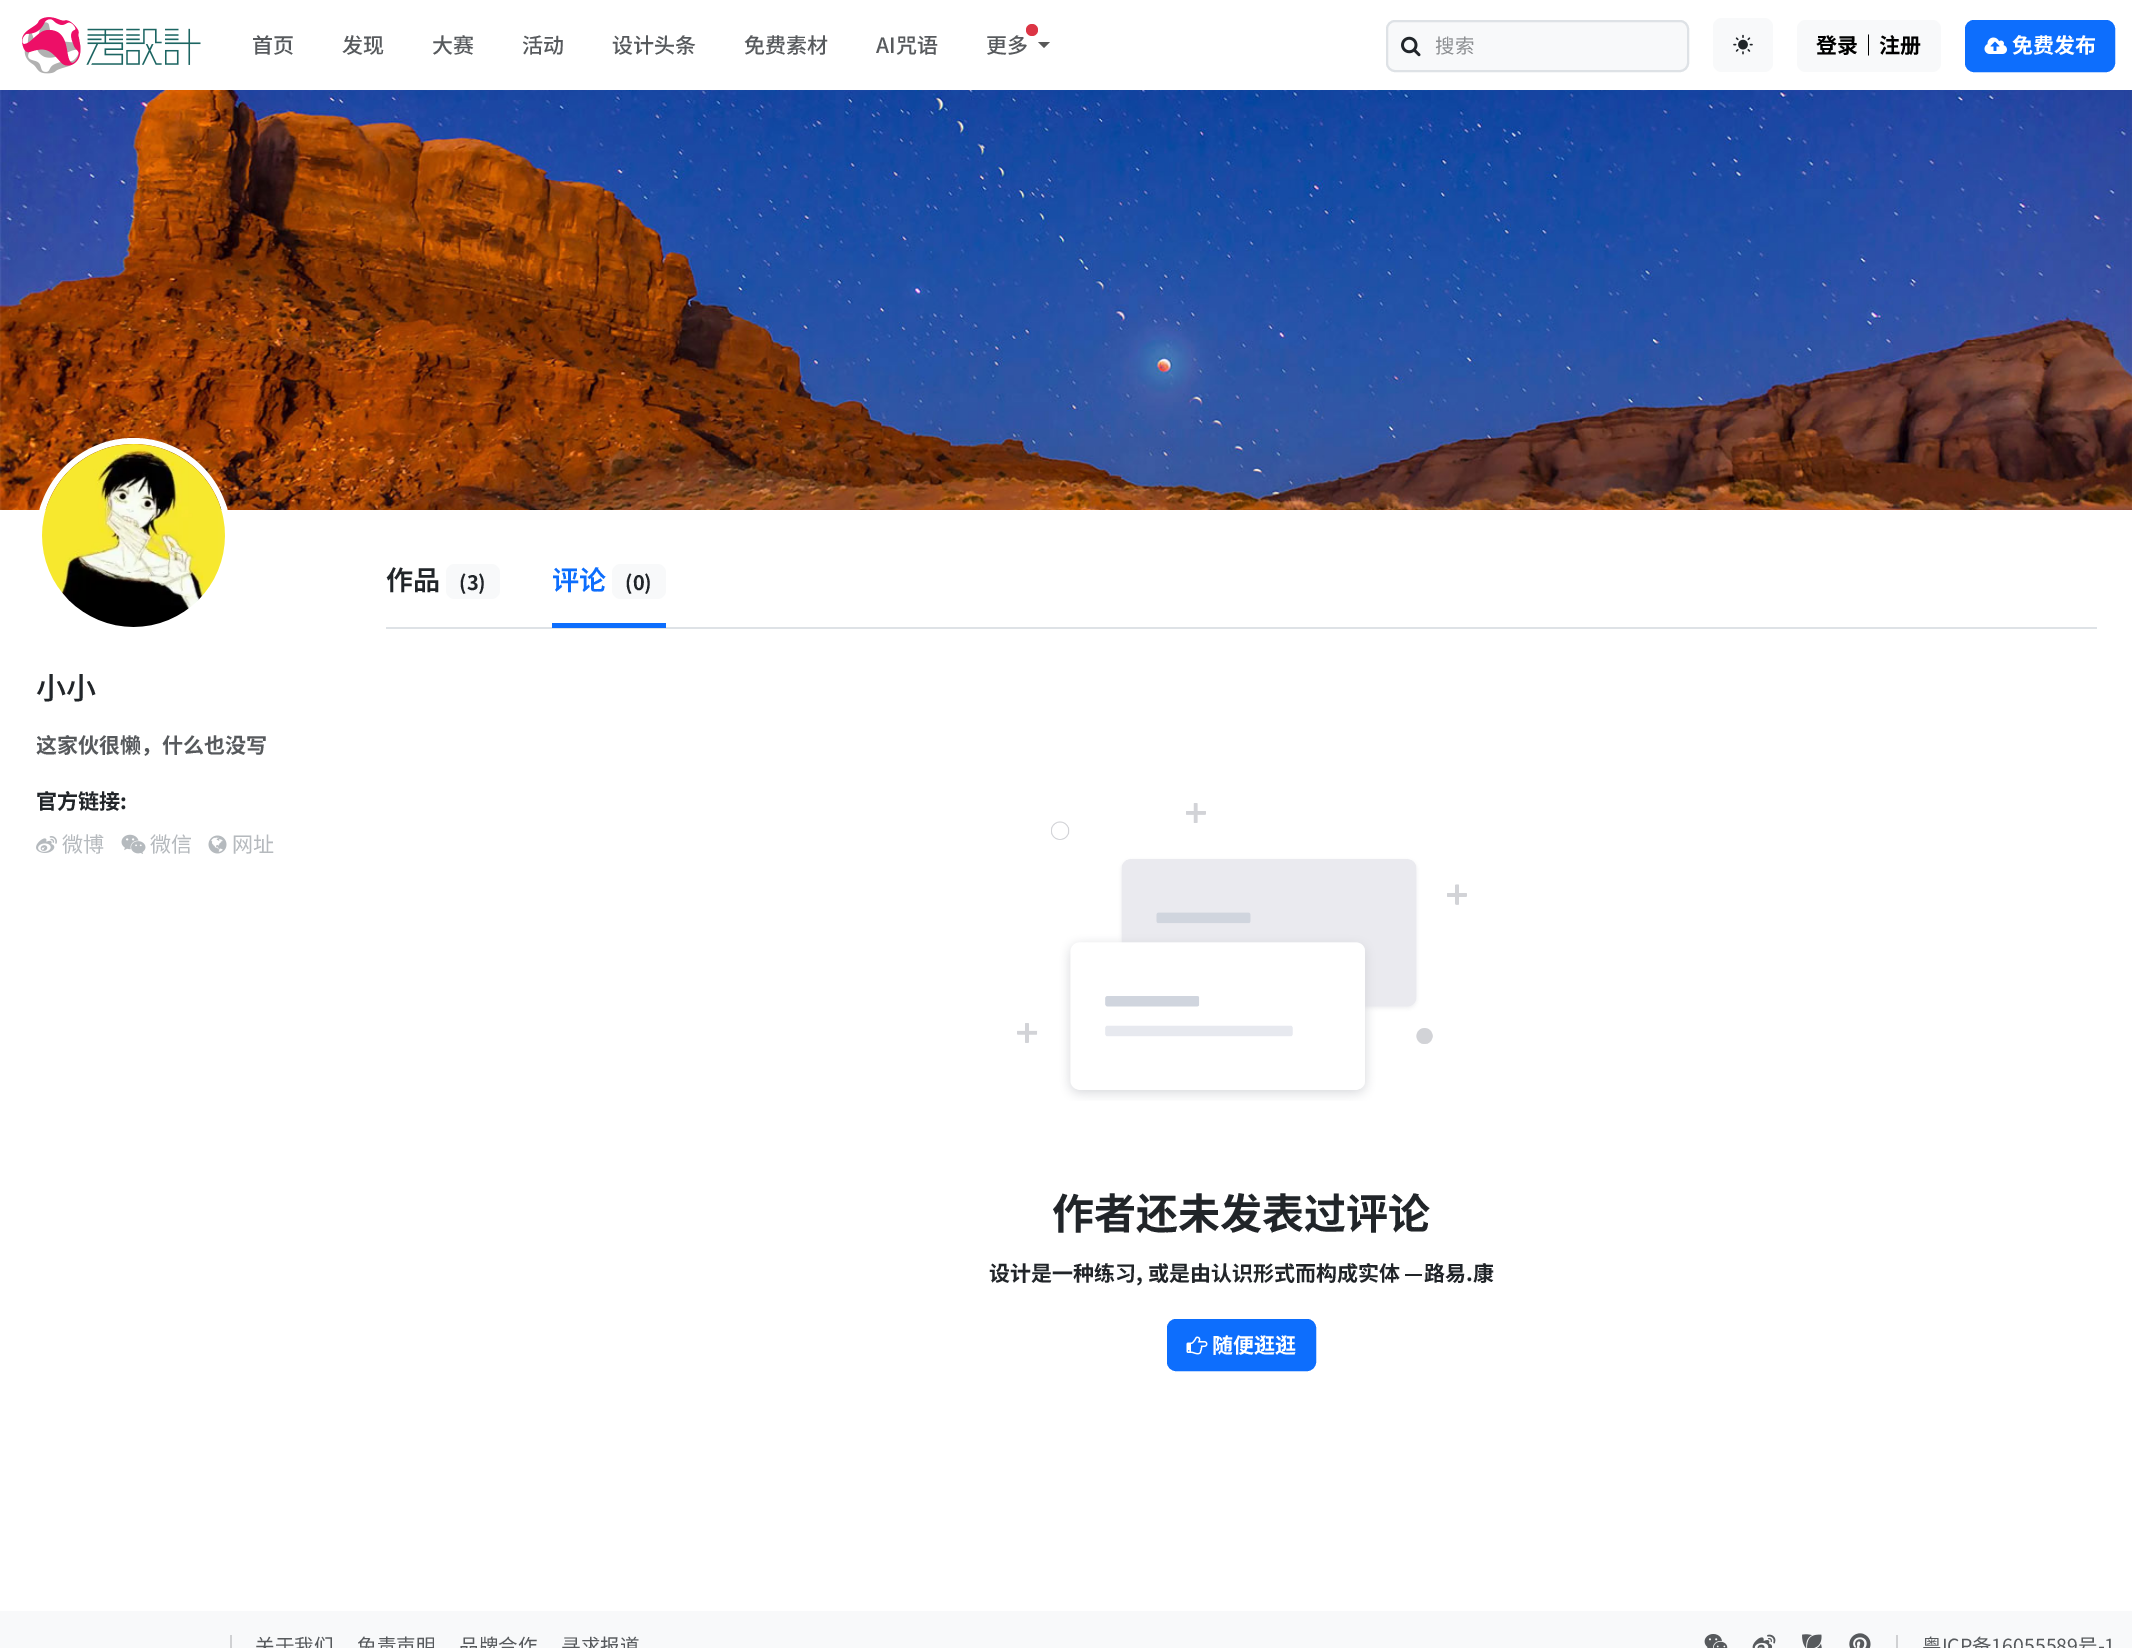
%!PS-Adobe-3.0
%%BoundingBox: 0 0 2132 1648
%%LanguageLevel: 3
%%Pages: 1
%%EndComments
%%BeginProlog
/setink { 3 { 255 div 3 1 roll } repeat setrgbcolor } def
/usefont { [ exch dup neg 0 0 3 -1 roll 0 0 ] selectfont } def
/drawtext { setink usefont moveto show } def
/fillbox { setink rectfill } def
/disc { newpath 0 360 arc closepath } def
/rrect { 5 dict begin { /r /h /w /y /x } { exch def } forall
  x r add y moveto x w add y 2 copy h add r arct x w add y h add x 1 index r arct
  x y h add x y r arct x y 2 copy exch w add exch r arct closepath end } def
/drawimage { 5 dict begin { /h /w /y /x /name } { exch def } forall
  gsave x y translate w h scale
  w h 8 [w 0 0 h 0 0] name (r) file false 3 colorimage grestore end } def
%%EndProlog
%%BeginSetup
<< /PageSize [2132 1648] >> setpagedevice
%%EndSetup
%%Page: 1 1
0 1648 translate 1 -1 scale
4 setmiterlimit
0 0 2132 1648 255 255 255 fillbox
(assets/img1.rgb) 22 17 179 57 drawimage
(首页) 252 53 /NotoSansSC-Medium 21 87 90 93 drawtext
(发现) 342 53 /NotoSansSC-Medium 21 87 90 93 drawtext
(大赛) 432 53 /NotoSansSC-Medium 21 87 90 93 drawtext
(活动) 522 53 /NotoSansSC-Medium 21 87 90 93 drawtext
(设计头条) 612 53 /NotoSansSC-Medium 21 87 90 93 drawtext
(免费素材) 744 53 /NotoSansSC-Medium 21 87 90 93 drawtext
(AI咒语) 876 53 /NotoSansSC-Medium 21 87 90 93 drawtext
(更多) 986 53 /NotoSansSC-Medium 21 87 90 93 drawtext
220 53 69 setink
1032 30 6 disc fill
89 89 89 setink
1038 42 moveto 1050 42 lineto 1044 48 lineto closepath fill
248 249 250 setink
1387 21 301 50 8 rrect gsave fill grestore
222 226 230 setink
2 setlinewidth
stroke
(assets/img2.rgb) 1401 36 20 21 drawimage
(搜索) 1435 53 /NotoSansSC-Regular 19.5 141 143 146 drawtext
248 249 250 setink
1713 18 60 54 9 rrect fill
(assets/img3.rgb) 1733 34 20 21 drawimage
1797 20 144 52 9 rrect fill
(登录｜注册) 1816 53 /NotoSansSC-Bold 21 0 0 0 drawtext
13 110 253 setink
1966 21 148 50 8 rrect gsave fill grestore
stroke
(assets/img4.rgb) 1984 37 23 17 drawimage
(免费发布) 2012 53 /NotoSansSC-Bold 21 255 255 255 drawtext
(assets/img5.rgb) 0 90 2132 420 drawimage
6 setlinewidth
133.5 535.5 94.5 disc stroke
(assets/img6.rgb) 42 444 183 183 drawimage
(小小) 36 699 /NotoSansSC-Medium 30 33 37 41 drawtext
(这家伙很懒，什么也没写) 36 753 /NotoSansSC-Bold 21 87 90 93 drawtext
(官方链接:) 36 809 /NotoSansSC-Bold 21 33 37 41 drawtext
(assets/img7.rgb) 36 836 21 17 drawimage
(微博) 62 852 /NotoSansCJKSC-Regular 21 182 186 190 drawtext
(assets/img8.rgb) 121 834 25 20 drawimage
(微信) 150 852 /NotoSansCJKSC-Regular 21 182 186 190 drawtext
(assets/img9.rgb) 208 835 19 19 drawimage
(网址) 232 852 /NotoSansCJKSC-Regular 21 182 186 190 drawtext
386 627 1711 2 222 226 230 fillbox
(作品) 386 590 /NotoSansSC-SemiBold 27 33 37 41 drawtext
248 249 250 setink
446 564 54 35 9 rrect fill
(\(3\)) 459 590 /NotoSansSC-Bold 20 33 37 41 drawtext
552 623 114 5 13 110 253 fillbox
(评论) 552 590 /NotoSansSC-SemiBold 27 13 110 253 drawtext
248 249 250 setink
612 564 54 35 9 rrect fill
(\(0\)) 625 590 /NotoSansSC-Bold 20 33 37 41 drawtext
(assets/img10.rgb) 1017 803 450 298 drawimage
(作者还未发表过评论) 1052 1229 /NotoSansSC-Bold 42 33 37 41 drawtext
(设计是一种练习, 或是由认识形式而构成实体 —) 989 1281 /NotoSansSC-Bold 21 33 37 41 drawtext
(路易.康) 1424 1281 /NotoSansSC-Bold 21 33 37 41 drawtext
13 110 253 setink
1168 1320 147 50 8 rrect gsave fill grestore
2 setlinewidth
stroke
(assets/img11.rgb) 1186 1336 22 19 drawimage
(随便逛逛) 1212 1353 /NotoSansSC-Bold 21 255 255 255 drawtext
0 1611 2132 37 248 249 250 fillbox
230 1635 2 13 208 209 211 fillbox
(关于我们) 255 1653 /NotoSansSC-Regular 19.5 87 90 93 drawtext
(免责声明) 357 1653 /NotoSansSC-Regular 19.5 87 90 93 drawtext
(品牌合作) 459 1653 /NotoSansSC-Regular 19.5 87 90 93 drawtext
(寻求报道) 561 1653 /NotoSansSC-Regular 19.5 87 90 93 drawtext
(assets/img12.rgb) 1704 1634 24 14 drawimage
(assets/img13.rgb) 1752 1634 24 14 drawimage
(assets/img14.rgb) 1802 1634 20 14 drawimage
(assets/img15.rgb) 1849 1633 22 15 drawimage
1896 1635 2 13 208 209 211 fillbox
(粤ICP备16055589号-1) 1922 1653 /NotoSansSC-Regular 19.5 87 90 93 drawtext
showpage
%%EOF
